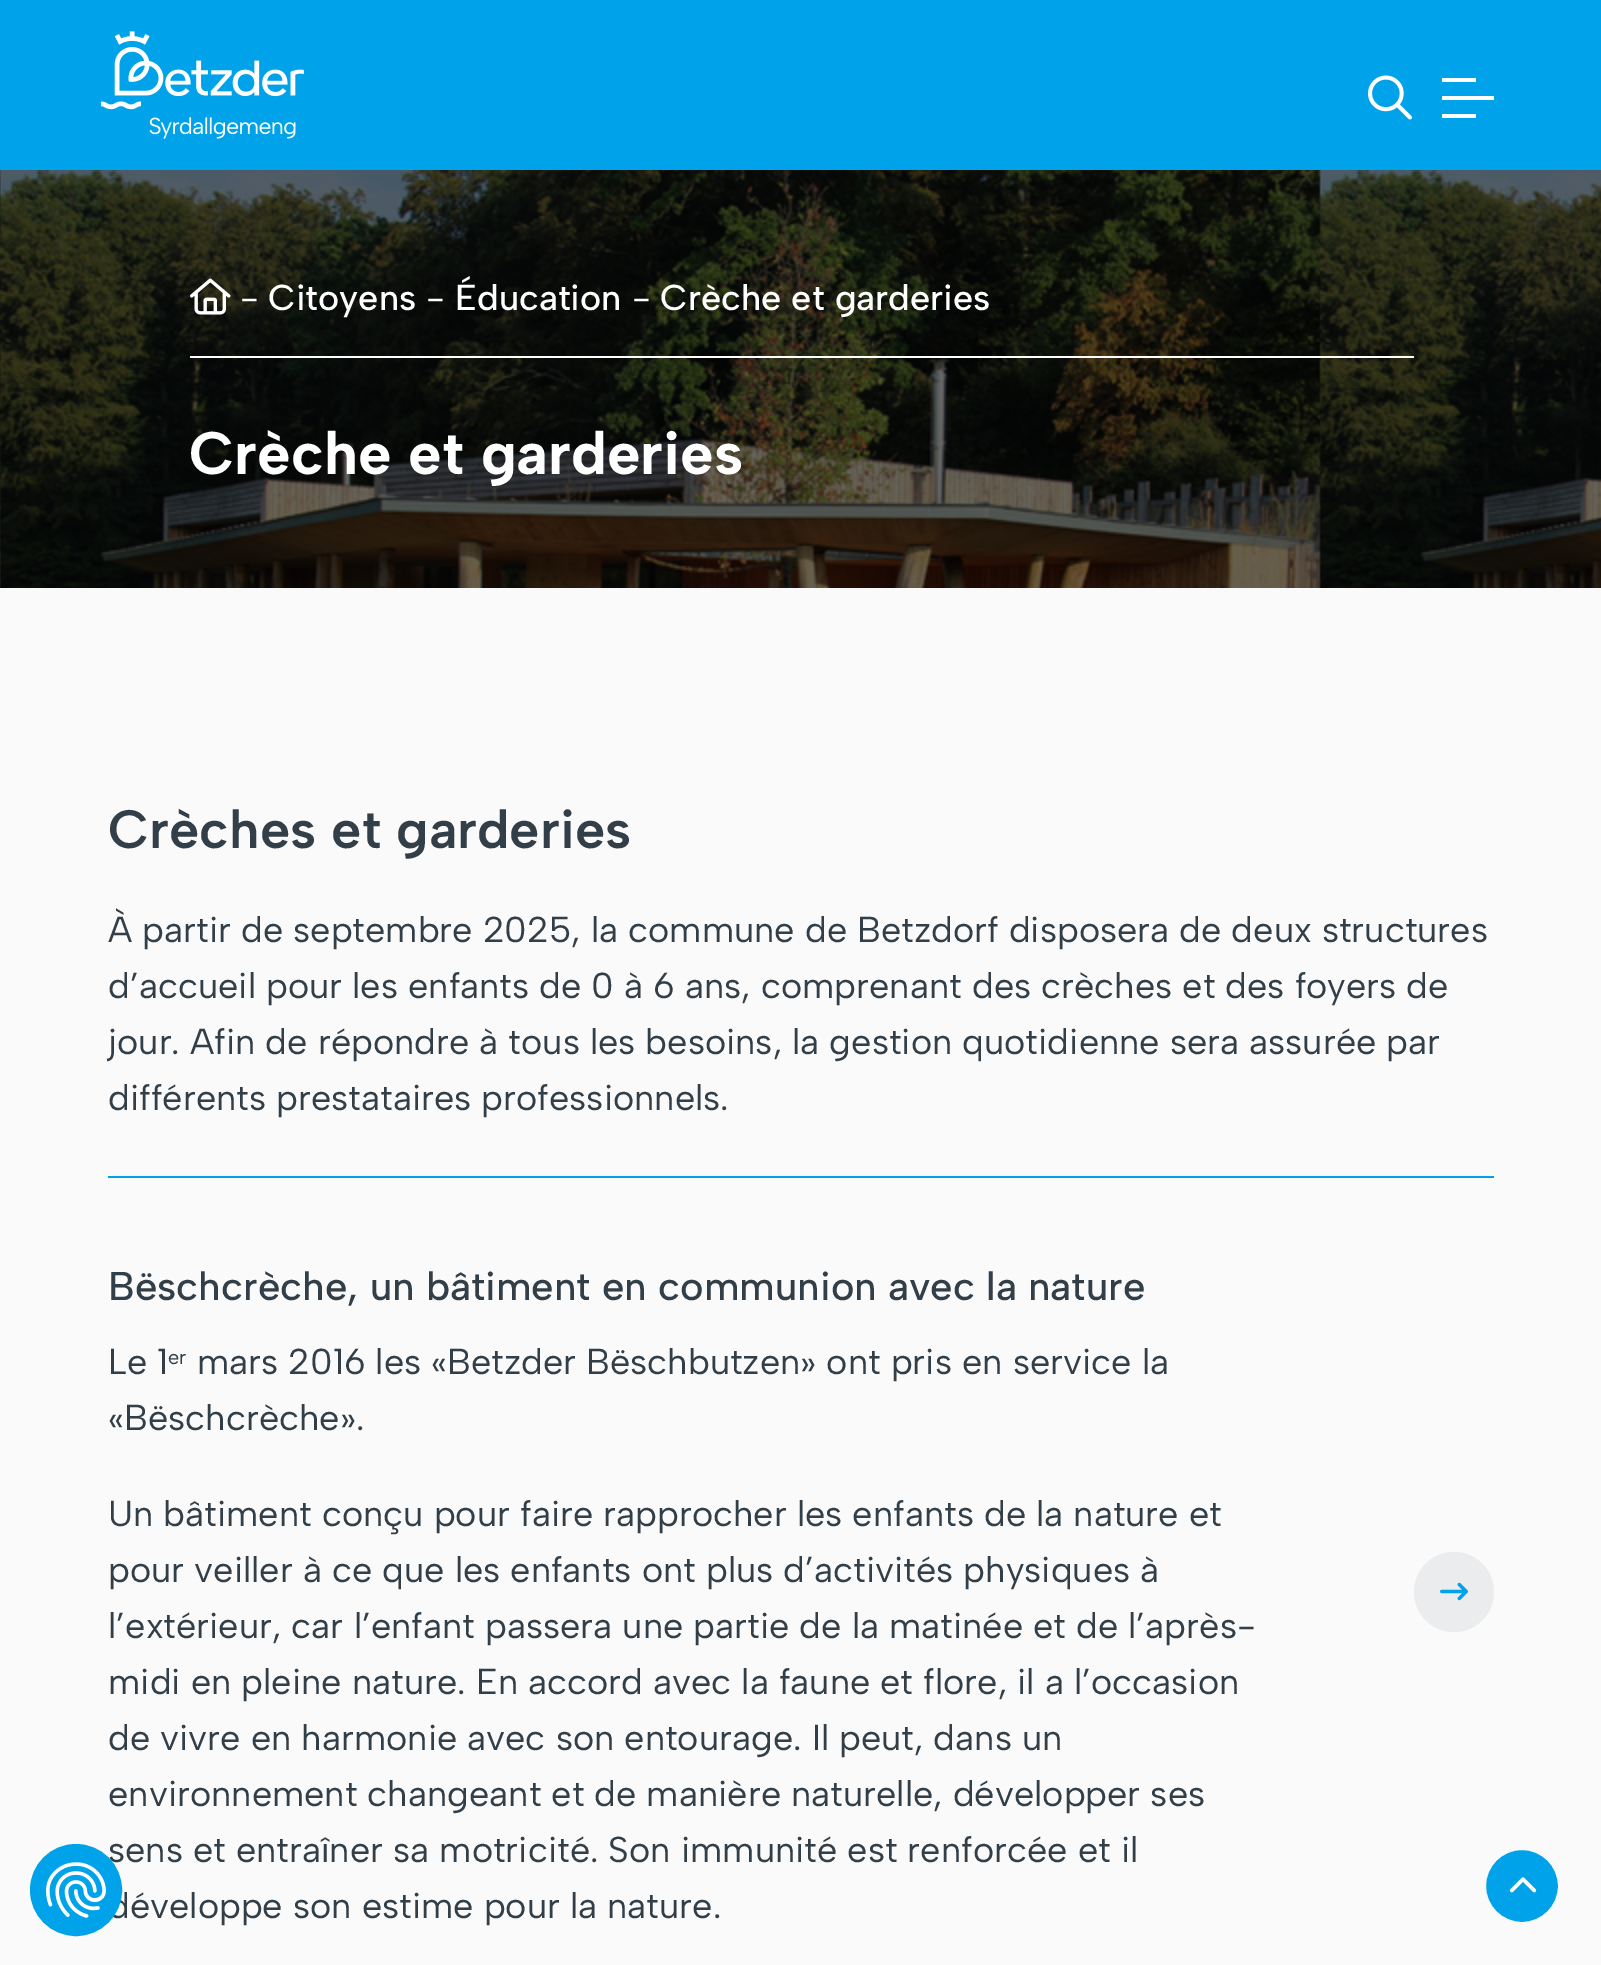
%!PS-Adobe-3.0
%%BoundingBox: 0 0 1601 1965
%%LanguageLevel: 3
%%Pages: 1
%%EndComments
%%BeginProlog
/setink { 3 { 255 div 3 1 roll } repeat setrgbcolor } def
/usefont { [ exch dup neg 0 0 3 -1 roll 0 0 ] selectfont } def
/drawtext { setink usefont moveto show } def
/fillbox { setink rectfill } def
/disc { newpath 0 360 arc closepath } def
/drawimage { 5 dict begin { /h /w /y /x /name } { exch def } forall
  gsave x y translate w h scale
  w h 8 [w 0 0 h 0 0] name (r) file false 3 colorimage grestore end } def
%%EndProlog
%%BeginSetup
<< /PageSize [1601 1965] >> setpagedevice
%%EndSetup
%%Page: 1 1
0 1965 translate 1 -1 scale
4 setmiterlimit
0 0 1601 1965 0 163 233 fillbox
(assets/img1.rgb) 100 31 204 108 drawimage
(assets/img2.rgb) 1368 75 44 45 drawimage
1442 78 34 4 255 255 255 fillbox
1442 96 52 4 255 255 255 fillbox
1442 114 34 4 255 255 255 fillbox
0 588 1601 1377 250 250 250 fillbox
(sens et entraîner sa motricité. Son immunité est renforcée et il) 108 1862 /AlbertSans-Regular 36 50 63 72 drawtext
(développe son estime pour la nature.) 108 1918 /AlbertSans-Regular 36 50 63 72 drawtext
0 163 233 setink
76 1890 45 disc gsave fill grestore
2 setlinewidth
stroke
(assets/img3.rgb) 46 1862 60 56 drawimage
(assets/img4.rgb) 0 170 1601 418 drawimage
(assets/img5.rgb) 190 278 41 37 drawimage
(-) 240 310 /AlbertSans-Regular 36 255 255 255 drawtext
(Citoyens) 268 310 /AlbertSans-Medium 36 255 255 255 drawtext
(-) 426 310 /AlbertSans-Regular 36 255 255 255 drawtext
(Éducation) 455 310 /AlbertSans-Medium 36 255 255 255 drawtext
(-) 632 310 /AlbertSans-Regular 36 255 255 255 drawtext
(Crèche et garderies) 660 310 /AlbertSans-Medium 36 255 255 255 drawtext
190 356 1224 2 255 255 255 fillbox
(Crèche et garderies) 189 474 /AlbertSans-Bold 60 255 255 255 drawtext
(Crèches et garderies) 108 848 /AlbertSans-SemiBold 54 50 63 72 drawtext
(À partir de septembre 2025, la commune de Betzdorf disposera de deux structures) 108 942 /AlbertSans-Regular 36 50 63 72 drawtext
(d’accueil pour les enfants de 0 à 6 ans, comprenant des crèches et des foyers de) 108 998 /AlbertSans-Regular 36 50 63 72 drawtext
(jour. Afin de répondre à tous les besoins, la gestion quotidienne sera assurée par) 108 1054 /AlbertSans-Regular 36 50 63 72 drawtext
(différents prestataires professionnels.) 108 1110 /AlbertSans-Regular 36 50 63 72 drawtext
108 1176 1386 2 0 163 233 fillbox
(Bëschcrèche, un bâtiment en communion avec la nature) 108 1300 /AlbertSans-Medium 40 50 63 72 drawtext
(Le 1) 108 1374 /AlbertSans-Regular 36 50 63 72 drawtext
(er) 168 1364 /AlbertSans-Regular 20 50 63 72 drawtext
(mars 2016 les «Betzder Bëschbutzen» ont pris en service la) 197 1374 /AlbertSans-Regular 36 50 63 72 drawtext
(«Bëschcrèche».) 108 1430 /AlbertSans-Regular 36 50 63 72 drawtext
(Un bâtiment conçu pour faire rapprocher les enfants de la nature et) 108 1526 /AlbertSans-Regular 36 50 63 72 drawtext
(pour veiller à ce que les enfants ont plus d’activités physiques à) 108 1582 /AlbertSans-Regular 36 50 63 72 drawtext
(l’extérieur, car l’enfant passera une partie de la matinée et de l’après-) 108 1638 /AlbertSans-Regular 36 50 63 72 drawtext
(midi en pleine nature. En accord avec la faune et flore, il a l’occasion) 108 1694 /AlbertSans-Regular 36 50 63 72 drawtext
(de vivre en harmonie avec son entourage. Il peut, dans un) 108 1750 /AlbertSans-Regular 36 50 63 72 drawtext
(environnement changeant et de manière naturelle, développer ses) 108 1806 /AlbertSans-Regular 36 50 63 72 drawtext
234 236 237 setink
1454 1592 40 disc fill
(assets/img6.rgb) 1440 1582 28 19 drawimage
0 163 233 setink
1522 1886 38 disc gsave fill grestore
250 250 250 setink
4 setlinewidth
stroke
(assets/img7.rgb) 1509 1877 28 16 drawimage
showpage
%%EOF
